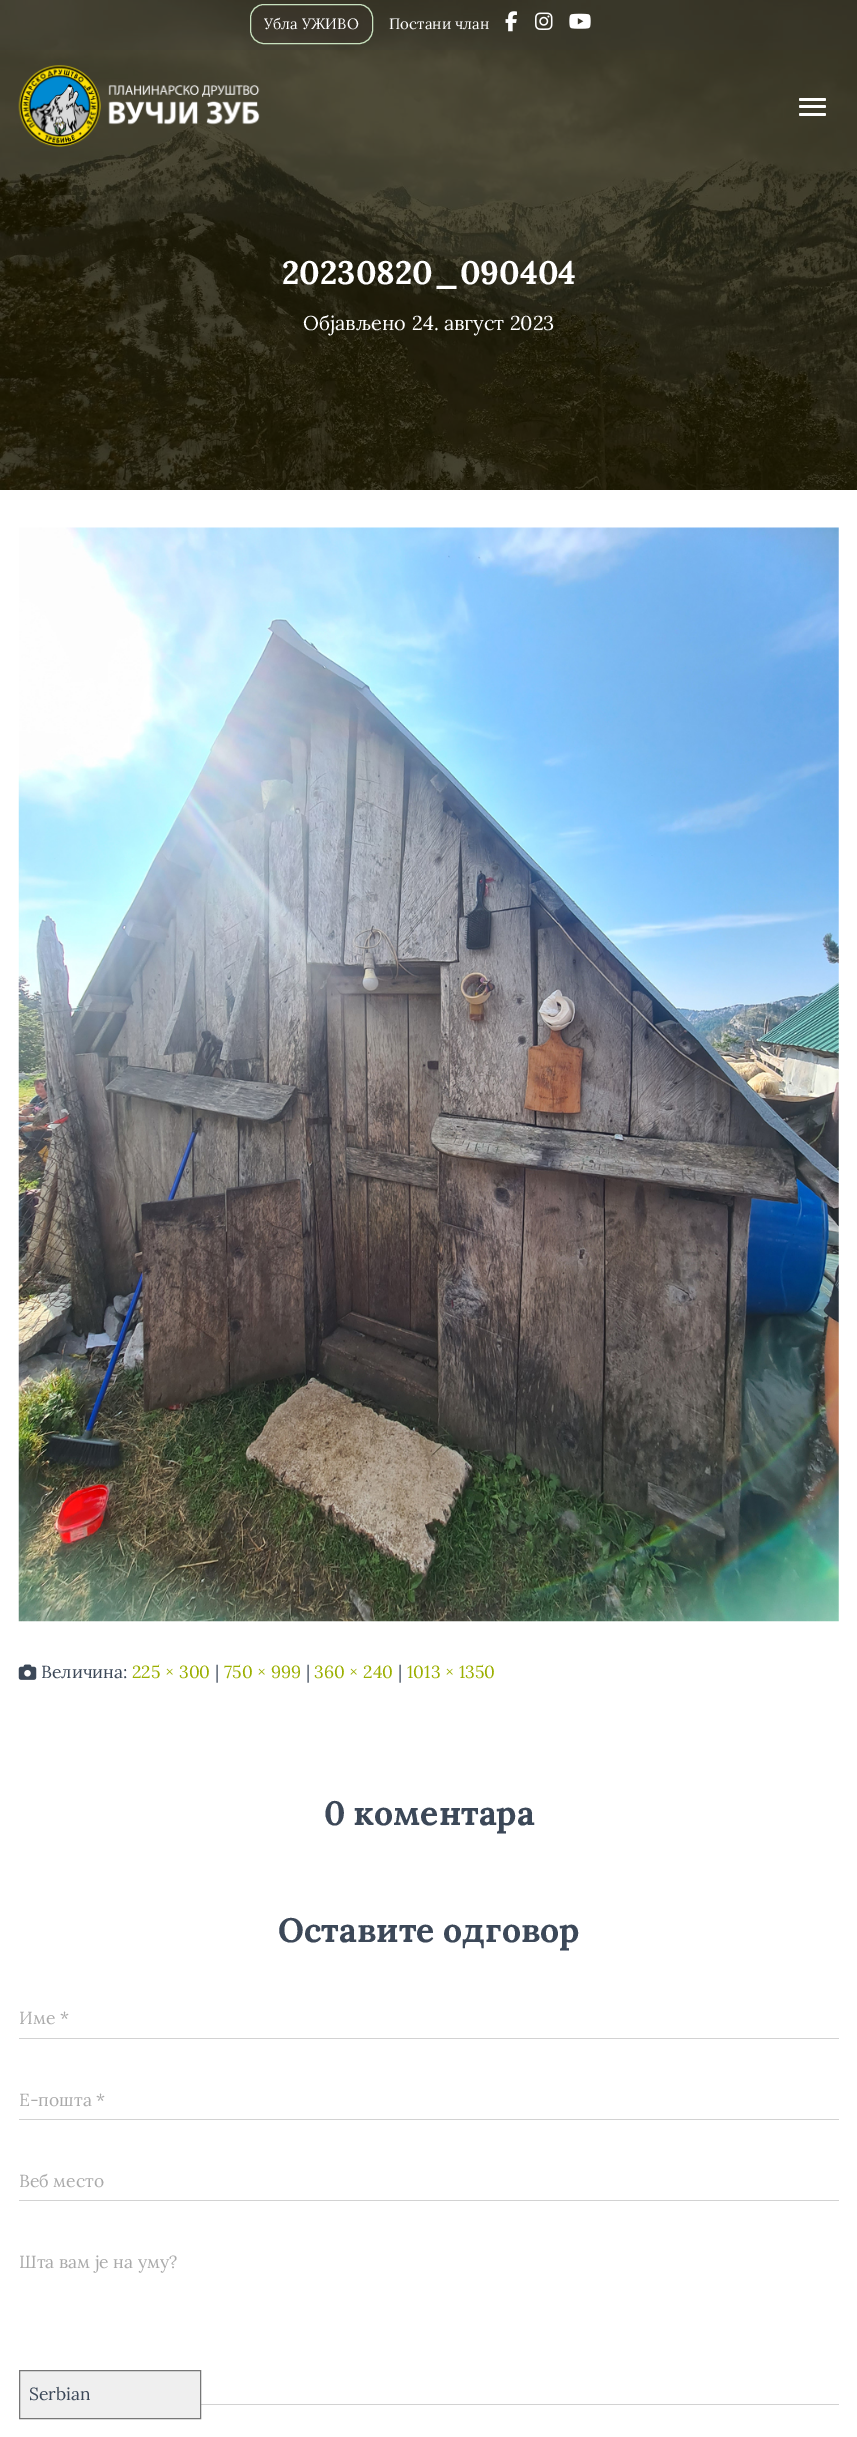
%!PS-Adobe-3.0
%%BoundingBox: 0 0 857 2437
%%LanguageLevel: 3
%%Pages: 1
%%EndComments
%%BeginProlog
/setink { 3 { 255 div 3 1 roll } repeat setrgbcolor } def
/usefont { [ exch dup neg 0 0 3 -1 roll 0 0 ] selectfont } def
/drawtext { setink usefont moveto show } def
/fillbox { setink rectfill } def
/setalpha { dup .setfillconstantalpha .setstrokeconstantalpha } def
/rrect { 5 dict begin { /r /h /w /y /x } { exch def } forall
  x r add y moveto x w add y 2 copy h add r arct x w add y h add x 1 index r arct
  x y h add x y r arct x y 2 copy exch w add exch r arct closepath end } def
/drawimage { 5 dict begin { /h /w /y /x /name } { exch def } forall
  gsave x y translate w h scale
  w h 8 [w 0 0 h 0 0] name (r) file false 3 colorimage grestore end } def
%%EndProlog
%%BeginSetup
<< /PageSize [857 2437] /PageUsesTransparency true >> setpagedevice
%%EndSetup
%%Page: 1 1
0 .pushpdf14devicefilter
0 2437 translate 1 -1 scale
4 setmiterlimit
0 0 857 2437 255 255 255 fillbox
(assets/img5.rgb) 0 0 857 490 drawimage
0.16 setalpha
0 0 857 50 54 53 55 fillbox
0.18 setalpha
61 46 46 setink
250.5 4.5 122 39 13.5 rrect fill
1 setalpha
200 226 191 setink
250.5 4.5 122 39 13.5 rrect stroke
(Убла УЖИВО) 264 29 /Lora-Regular 15 255 255 255 drawtext
(Постани члан) 389 29 /Lora-Regular 15 255 255 255 drawtext
(assets/img1.rgb) 505 11 12 21 drawimage
(assets/img2.rgb) 535 12 18 18 drawimage
(assets/img3.rgb) 569 13 22 16 drawimage
(assets/img4.rgb) 18 65 242 82 drawimage
799 98 27 3 1.5 rrect fill
799 105 27 3 1.5 rrect fill
799 113 27 3 1.5 rrect fill
(20230820_090404) 282 284 /Lora-Bold 32.5 255 255 255 drawtext
(Објављено) 303 330 /Lora-Regular 20 255 255 255 drawtext
(24. август 2023) 412 330 /Lora-Regular 20 255 255 255 drawtext
(assets/img6.rgb) 18 527 821 1095 drawimage
(assets/img7.rgb) 18 1664 19 16 drawimage
(Величина:) 41 1678 /Lora-Regular 17.5 60 72 88 drawtext
(225 × 300) 132 1678 /Lora-Regular 17.5 155 175 0 drawtext
(|) 215 1678 /Lora-Regular 17.5 60 72 88 drawtext
(750 × 999) 224 1678 /Lora-Regular 17.5 155 175 0 drawtext
(|) 306 1678 /Lora-Regular 17.5 60 72 88 drawtext
(360 × 240) 314 1678 /Lora-Regular 17.5 155 175 0 drawtext
(|) 398 1678 /Lora-Regular 17.5 60 72 88 drawtext
(1013 × 1350) 407 1678 /Lora-Regular 17.5 155 175 0 drawtext
(0 коментара) 324 1825 /Lora-Bold 33.75 60 72 88 drawtext
(Оставите одговор) 278 1942 /Lora-Bold 33.75 60 72 88 drawtext
(Име *) 19 2024 /Lora-Regular 17.5 170 170 170 drawtext
19 2038 820 1 210 210 210 fillbox
(Е-пошта *) 19 2106 /Lora-Regular 17.5 170 170 170 drawtext
19 2119 820 1 210 210 210 fillbox
(Веб место) 19 2187 /Lora-Regular 17.5 170 170 170 drawtext
19 2200 820 1 210 210 210 fillbox
(Шта вам је на уму?) 19 2268 /Lora-Regular 17.5 170 170 170 drawtext
201 2404 638 1 210 210 210 fillbox
239 239 239 setink
19.5 2370.5 moveto 200.5 2370.5 lineto 200.5 2418.5 lineto 19.5 2418.5 lineto closepath gsave fill grestore
118 118 118 setink
stroke
(Serbian) 29 2400 /Lora-Regular 17.5 60 72 88 drawtext
.poppdf14devicefilter showpage
%%EOF
